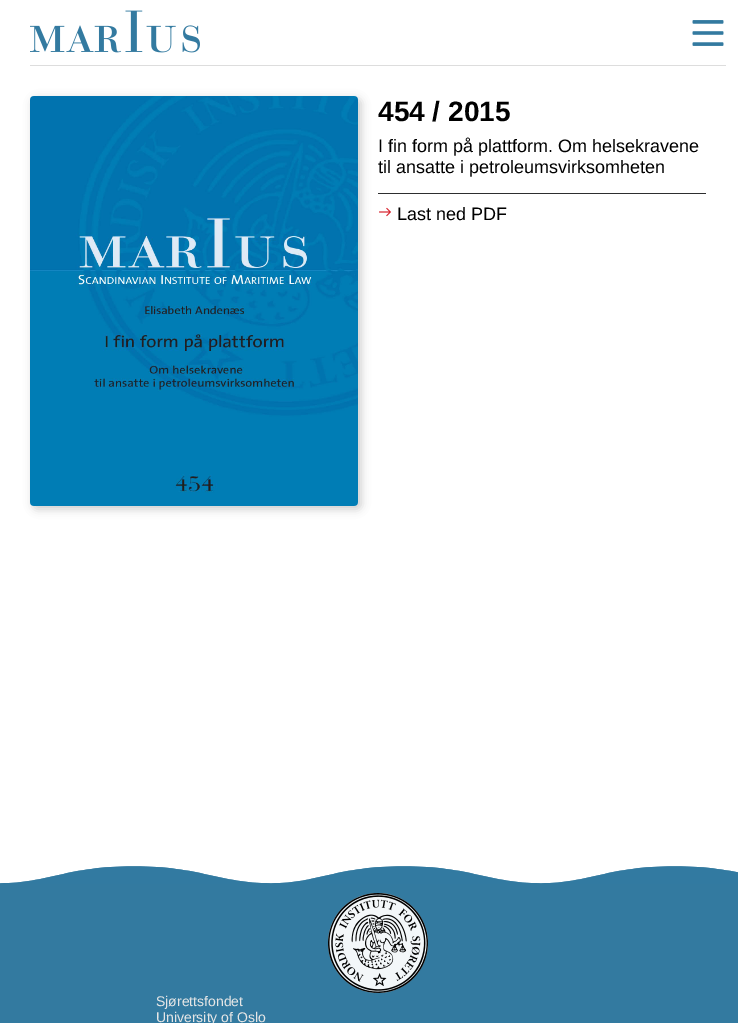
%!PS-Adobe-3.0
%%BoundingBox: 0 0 738 1023
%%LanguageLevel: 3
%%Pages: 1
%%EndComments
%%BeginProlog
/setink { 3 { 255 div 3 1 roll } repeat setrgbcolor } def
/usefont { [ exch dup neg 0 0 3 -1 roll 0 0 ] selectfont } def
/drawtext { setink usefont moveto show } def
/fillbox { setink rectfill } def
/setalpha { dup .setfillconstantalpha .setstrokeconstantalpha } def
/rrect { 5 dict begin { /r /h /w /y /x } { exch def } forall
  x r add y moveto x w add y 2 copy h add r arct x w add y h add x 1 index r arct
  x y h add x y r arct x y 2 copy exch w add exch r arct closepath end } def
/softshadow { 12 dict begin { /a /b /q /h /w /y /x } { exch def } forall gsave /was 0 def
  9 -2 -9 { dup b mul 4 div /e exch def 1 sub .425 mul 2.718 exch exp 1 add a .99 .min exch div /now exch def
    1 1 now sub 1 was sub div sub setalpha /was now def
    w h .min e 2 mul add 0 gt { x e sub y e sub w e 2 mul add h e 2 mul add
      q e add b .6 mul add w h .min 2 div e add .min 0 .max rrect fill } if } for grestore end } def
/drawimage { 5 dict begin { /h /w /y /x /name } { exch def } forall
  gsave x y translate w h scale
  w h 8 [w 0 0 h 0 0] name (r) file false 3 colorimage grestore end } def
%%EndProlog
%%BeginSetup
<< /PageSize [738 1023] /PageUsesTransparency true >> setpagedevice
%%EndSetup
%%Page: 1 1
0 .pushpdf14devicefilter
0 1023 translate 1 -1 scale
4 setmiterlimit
0 0 738 1023 255 255 255 fillbox
30 65 696 1 221 221 221 fillbox
(assets/img1.rgb) 30 10 170 43 drawimage
(assets/img2.rgb) 692 20 32 26 drawimage
0 0 0 setink
33 99 328 410 4 4.5 0.2 softshadow
(assets/img3.rgb) 30 96 328 410 drawimage
(454 / 2015) 378 121 /LiberationSans-Bold 28 0 0 0 drawtext
(I fin form på plattform. Om helsekravene) 378 152 /LiberationSans-Regular 18 0 0 0 drawtext
(til ansatte i petroleumsvirksomheten) 378 173 /LiberationSans-Regular 18 0 0 0 drawtext
378 193 328 1 45 46 47 fillbox
(assets/img4.rgb) 379 207 12 10 drawimage
(Last ned PDF) 397 220 /LiberationSans-Regular 18 0 0 0 drawtext
0 893 738 130 51 122 160 fillbox
(assets/img5.rgb) 0 866 738 27 drawimage
(assets/img6.rgb) 0 866 738 18 drawimage
(assets/img7.rgb) 0 866 738 18 drawimage
(assets/img8.rgb) 328 893 100 100 drawimage
(Sjørettsfondet) 156 1006 /LiberationSans-Regular 14 230 230 230 drawtext
(University of Oslo) 156 1022 /LiberationSans-Regular 14 230 230 230 drawtext
.poppdf14devicefilter showpage
%%EOF
